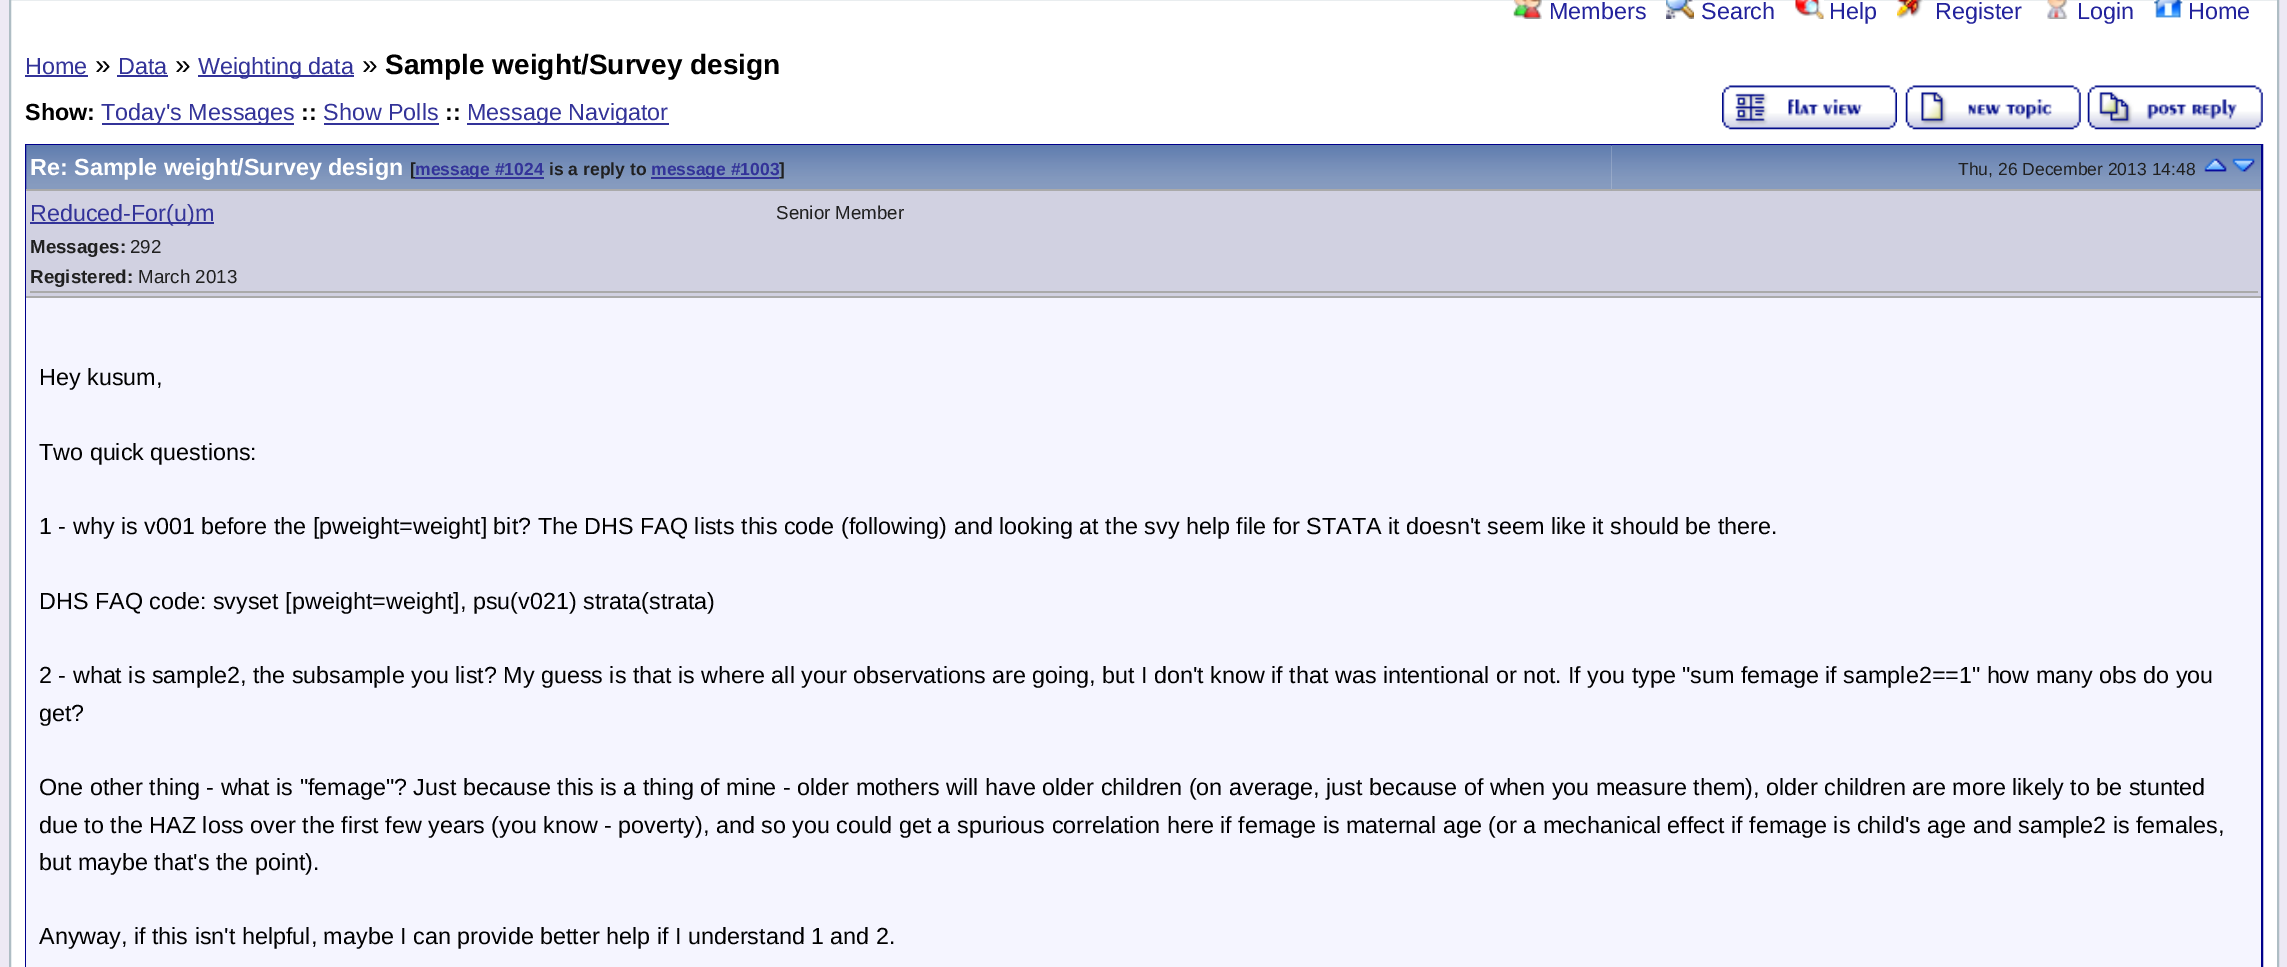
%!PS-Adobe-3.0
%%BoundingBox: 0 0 2287 967
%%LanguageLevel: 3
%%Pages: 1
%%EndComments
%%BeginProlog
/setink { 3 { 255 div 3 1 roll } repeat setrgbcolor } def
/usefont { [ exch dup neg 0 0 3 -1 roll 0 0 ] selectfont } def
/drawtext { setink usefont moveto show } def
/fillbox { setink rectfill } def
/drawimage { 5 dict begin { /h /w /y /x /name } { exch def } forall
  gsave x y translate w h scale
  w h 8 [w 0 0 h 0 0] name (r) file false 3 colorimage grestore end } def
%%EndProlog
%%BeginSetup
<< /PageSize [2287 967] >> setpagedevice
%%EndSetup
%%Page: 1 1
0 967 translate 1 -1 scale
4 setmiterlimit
0 0 2287 967 237 233 244 fillbox
255 255 255 setink
10 -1 moveto 2278 -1 lineto 2278 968 lineto 10 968 lineto closepath gsave fill grestore
174 189 196 setink
2 setlinewidth
stroke
(assets/img1.rgb) 1513 0 29 19 drawimage
(Members) 1549 19 /LiberationSans-Regular 23.33 34 34 156 drawtext
(assets/img2.rgb) 1666 0 28 19 drawimage
(Search) 1701 19 /LiberationSans-Regular 23.33 34 34 156 drawtext
(assets/img3.rgb) 1795 0 29 19 drawimage
(Help) 1829 19 /LiberationSans-Regular 23.33 34 34 156 drawtext
(assets/img4.rgb) 1897 0 27 19 drawimage
(Register) 1935 19 /LiberationSans-Regular 23.33 34 34 156 drawtext
(assets/img5.rgb) 2047 0 21 19 drawimage
(Login) 2077 19 /LiberationSans-Regular 23.33 34 34 156 drawtext
(assets/img6.rgb) 2154 0 29 18 drawimage
(Home) 2188 19 /LiberationSans-Regular 23.33 34 34 156 drawtext
(Home) 25 74 /LiberationSans-Regular 23.33 51 51 153 drawtext
25 75 63 2 51 51 153 fillbox
(») 95 74 /LiberationSans-Regular 28 0 0 0 drawtext
(Data) 118 74 /LiberationSans-Regular 23.33 51 51 153 drawtext
117 75 51 2 51 51 153 fillbox
(») 175 74 /LiberationSans-Regular 28 0 0 0 drawtext
198 75 156 2 51 51 153 fillbox
(Weighting data) 198 74 /LiberationSans-Regular 23.33 51 51 153 drawtext
(») 362 74 /LiberationSans-Regular 28 0 0 0 drawtext
(Sample weight/Survey design) 385 74 /LiberationSans-Bold 28 0 0 0 drawtext
(Show:) 25 120 /LiberationSans-Bold 23.33 0 0 0 drawtext
102 123 192 2 51 51 153 fillbox
(Today's Messages) 101 120 /LiberationSans-Regular 23.33 51 51 153 drawtext
(::) 301 120 /LiberationSans-Bold 23.33 0 0 0 drawtext
(Show Polls) 323 120 /LiberationSans-Regular 23.33 51 51 153 drawtext
324 123 115 2 51 51 153 fillbox
(::) 445 120 /LiberationSans-Bold 23.33 0 0 0 drawtext
467 123 202 2 51 51 153 fillbox
(Message Navigator) 467 120 /LiberationSans-Regular 23.33 51 51 153 drawtext
(assets/img7.rgb) 1722 85 175 45 drawimage
(assets/img8.rgb) 1905 85 176 45 drawimage
(assets/img9.rgb) 2087 85 176 45 drawimage
0 0 139 setink
26 145 2236 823 rectstroke
(assets/img10.rgb) 26 145 1586 44 drawimage
26 189 1586 2 170 170 170 fillbox
(Re: Sample weight/Survey design) 30 175 /LiberationSans-Bold 23.33 255 255 255 drawtext
([) 410 175 /LiberationSans-Bold 17.5 32 32 32 drawtext
415 177 129 2 51 51 153 fillbox
(message #1024) 415 175 /LiberationSans-Bold 17.5 51 51 153 drawtext
(is a reply to) 549 175 /LiberationSans-Bold 17.5 32 32 32 drawtext
651 177 128 2 51 51 153 fillbox
(message #1003) 651 175 /LiberationSans-Bold 17.5 51 51 153 drawtext
(]) 779 175 /LiberationSans-Bold 17.5 32 32 32 drawtext
(assets/img11.rgb) 1611 145 650 46 drawimage
1612 189 649 2 170 170 170 fillbox
(Thu, 26 December 2013 14:48) 1958 175 /LiberationSans-Regular 17.5 32 32 32 drawtext
(assets/img12.rgb) 2204 158 23 14 drawimage
(assets/img13.rgb) 2232 158 23 14 drawimage
26 191 2235 105 209 209 225 fillbox
26 296 2235 2 170 170 170 fillbox
30 291 2228 2 170 170 170 fillbox
30 222 184 2 51 51 153 fillbox
(Reduced-For\(u\)m) 30 221 /LiberationSans-Regular 23.33 51 51 153 drawtext
(Messages:) 30 253 /LiberationSans-Bold 18.75 32 32 32 drawtext
(292) 130 253 /LiberationSans-Regular 18.75 32 32 32 drawtext
(Registered:) 30 283 /LiberationSans-Bold 18.75 32 32 32 drawtext
(March 2013) 138 283 /LiberationSans-Regular 18.75 32 32 32 drawtext
(Senior Member) 776 219 /LiberationSans-Regular 18.75 32 32 32 drawtext
26 298 2235 669 245 245 255 fillbox
(Hey kusum,) 39 385 /LiberationSans-Regular 23.33 0 0 0 drawtext
(Two quick questions:) 39 460 /LiberationSans-Regular 23.33 0 0 0 drawtext
(1 - why is v001 before the [pweight=weight] bit? The DHS FAQ lists this code \(following\) and looking at the svy help file for STATA it doesn't seem like it should be there.) 39 534 /LiberationSans-Regular 23.33 0 0 0 drawtext
(DHS FAQ code: svyset [pweight=weight], psu\(v021\) strata\(strata\)) 39 609 /LiberationSans-Regular 23.33 0 0 0 drawtext
(2 - what is sample2, the subsample you list? My guess is that is where all your observations are going, but I don't know if that was intentional or not.) 39 683 /LiberationSans-Regular 23.33 0 0 0 drawtext
(If you type "sum femage if sample2==1" how many obs do you) 1568 683 /LiberationSans-Regular 23.33 0 0 0 drawtext
(get?) 39 721 /LiberationSans-Regular 23.33 0 0 0 drawtext
(One other thing - what is "femage"? Just because this is a thing of mine - older mothers will have older children \(on average, just because of when you measure them\), older children are more likely to be stunted) 39 795 /LiberationSans-Regular 23.33 0 0 0 drawtext
(due to the HAZ loss over the first few years \(you know - poverty\), and so you could get a spurious correlation here if femage is maternal age \(or a mechanical effect if femage is child's age and sample2 is females,) 39 833 /LiberationSans-Regular 23.33 0 0 0 drawtext
(but maybe that's the point\).) 39 870 /LiberationSans-Regular 23.33 0 0 0 drawtext
(Anyway, if this isn't helpful, maybe I can provide better help if I understand 1 and 2.) 39 944 /LiberationSans-Regular 23.33 0 0 0 drawtext
showpage
%%EOF
